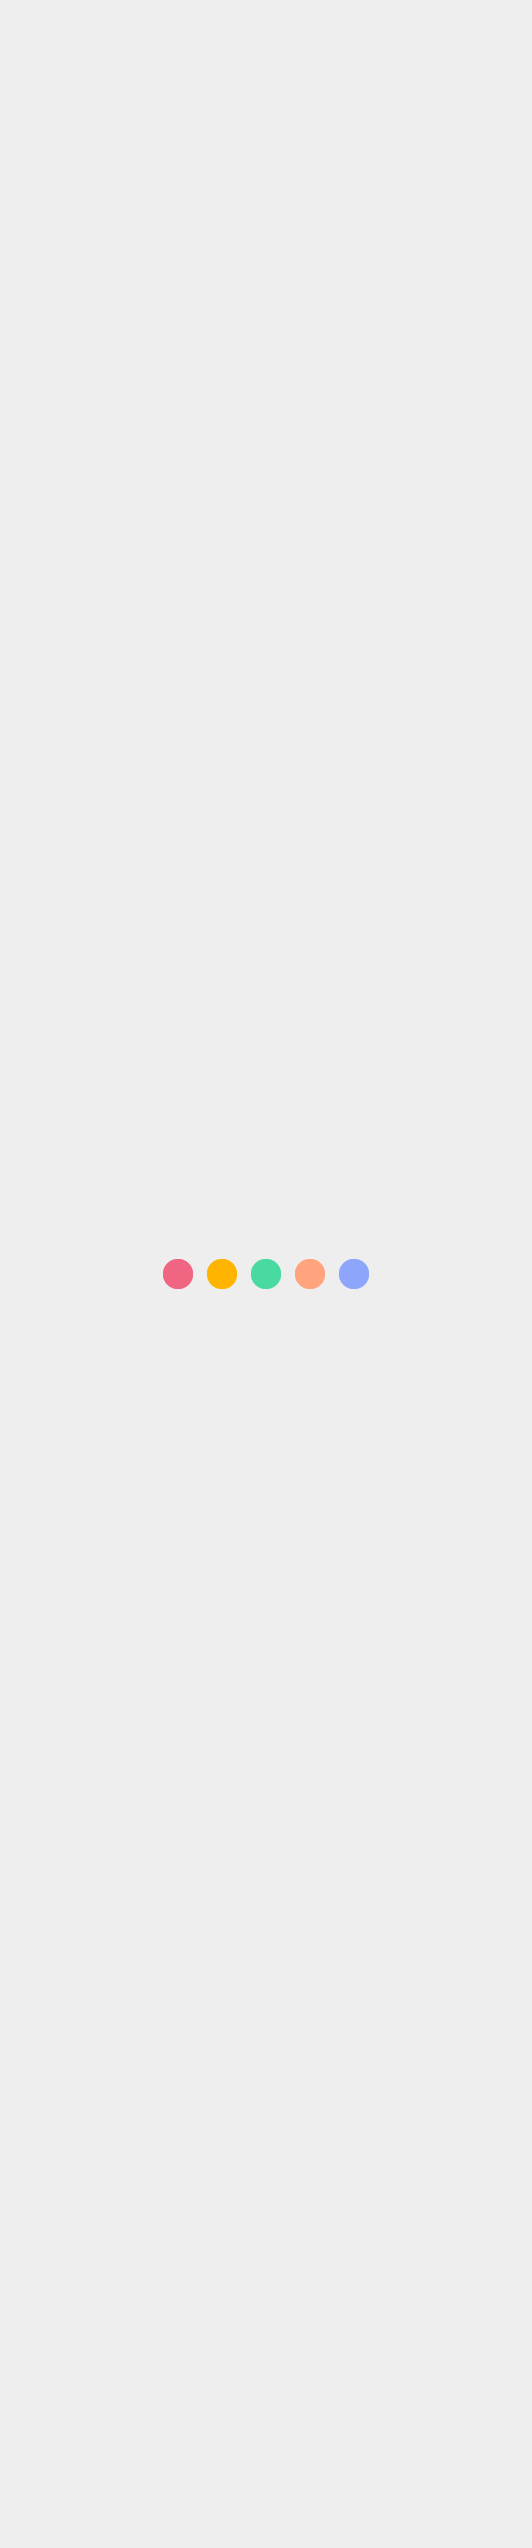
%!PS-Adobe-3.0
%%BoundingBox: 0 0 532 2548
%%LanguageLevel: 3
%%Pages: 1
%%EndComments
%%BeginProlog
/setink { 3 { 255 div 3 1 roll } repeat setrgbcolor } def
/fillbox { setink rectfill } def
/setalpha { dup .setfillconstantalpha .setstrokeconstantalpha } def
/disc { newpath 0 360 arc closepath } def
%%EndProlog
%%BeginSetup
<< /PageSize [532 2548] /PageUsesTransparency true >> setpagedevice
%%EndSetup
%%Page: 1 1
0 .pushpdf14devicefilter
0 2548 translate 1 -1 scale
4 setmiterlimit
0 0 532 2548 238 238 238 fillbox
239 101 130 setink
178 1274 15 disc fill
0.53 setalpha
178 1274 15 disc fill
1 setalpha
255 180 0 setink
222 1274 15 disc fill
0.59 setalpha
222 1274 15 disc fill
1 setalpha
72 218 161 setink
266 1274 15 disc fill
0.51 setalpha
266 1274 15 disc fill
1 setalpha
255 164 124 setink
310 1274 15 disc fill
0.56 setalpha
310 1274 15 disc fill
1 setalpha
141 165 251 setink
354 1274 15 disc fill
0.52 setalpha
354 1274 15 disc fill
.poppdf14devicefilter showpage
%%EOF
